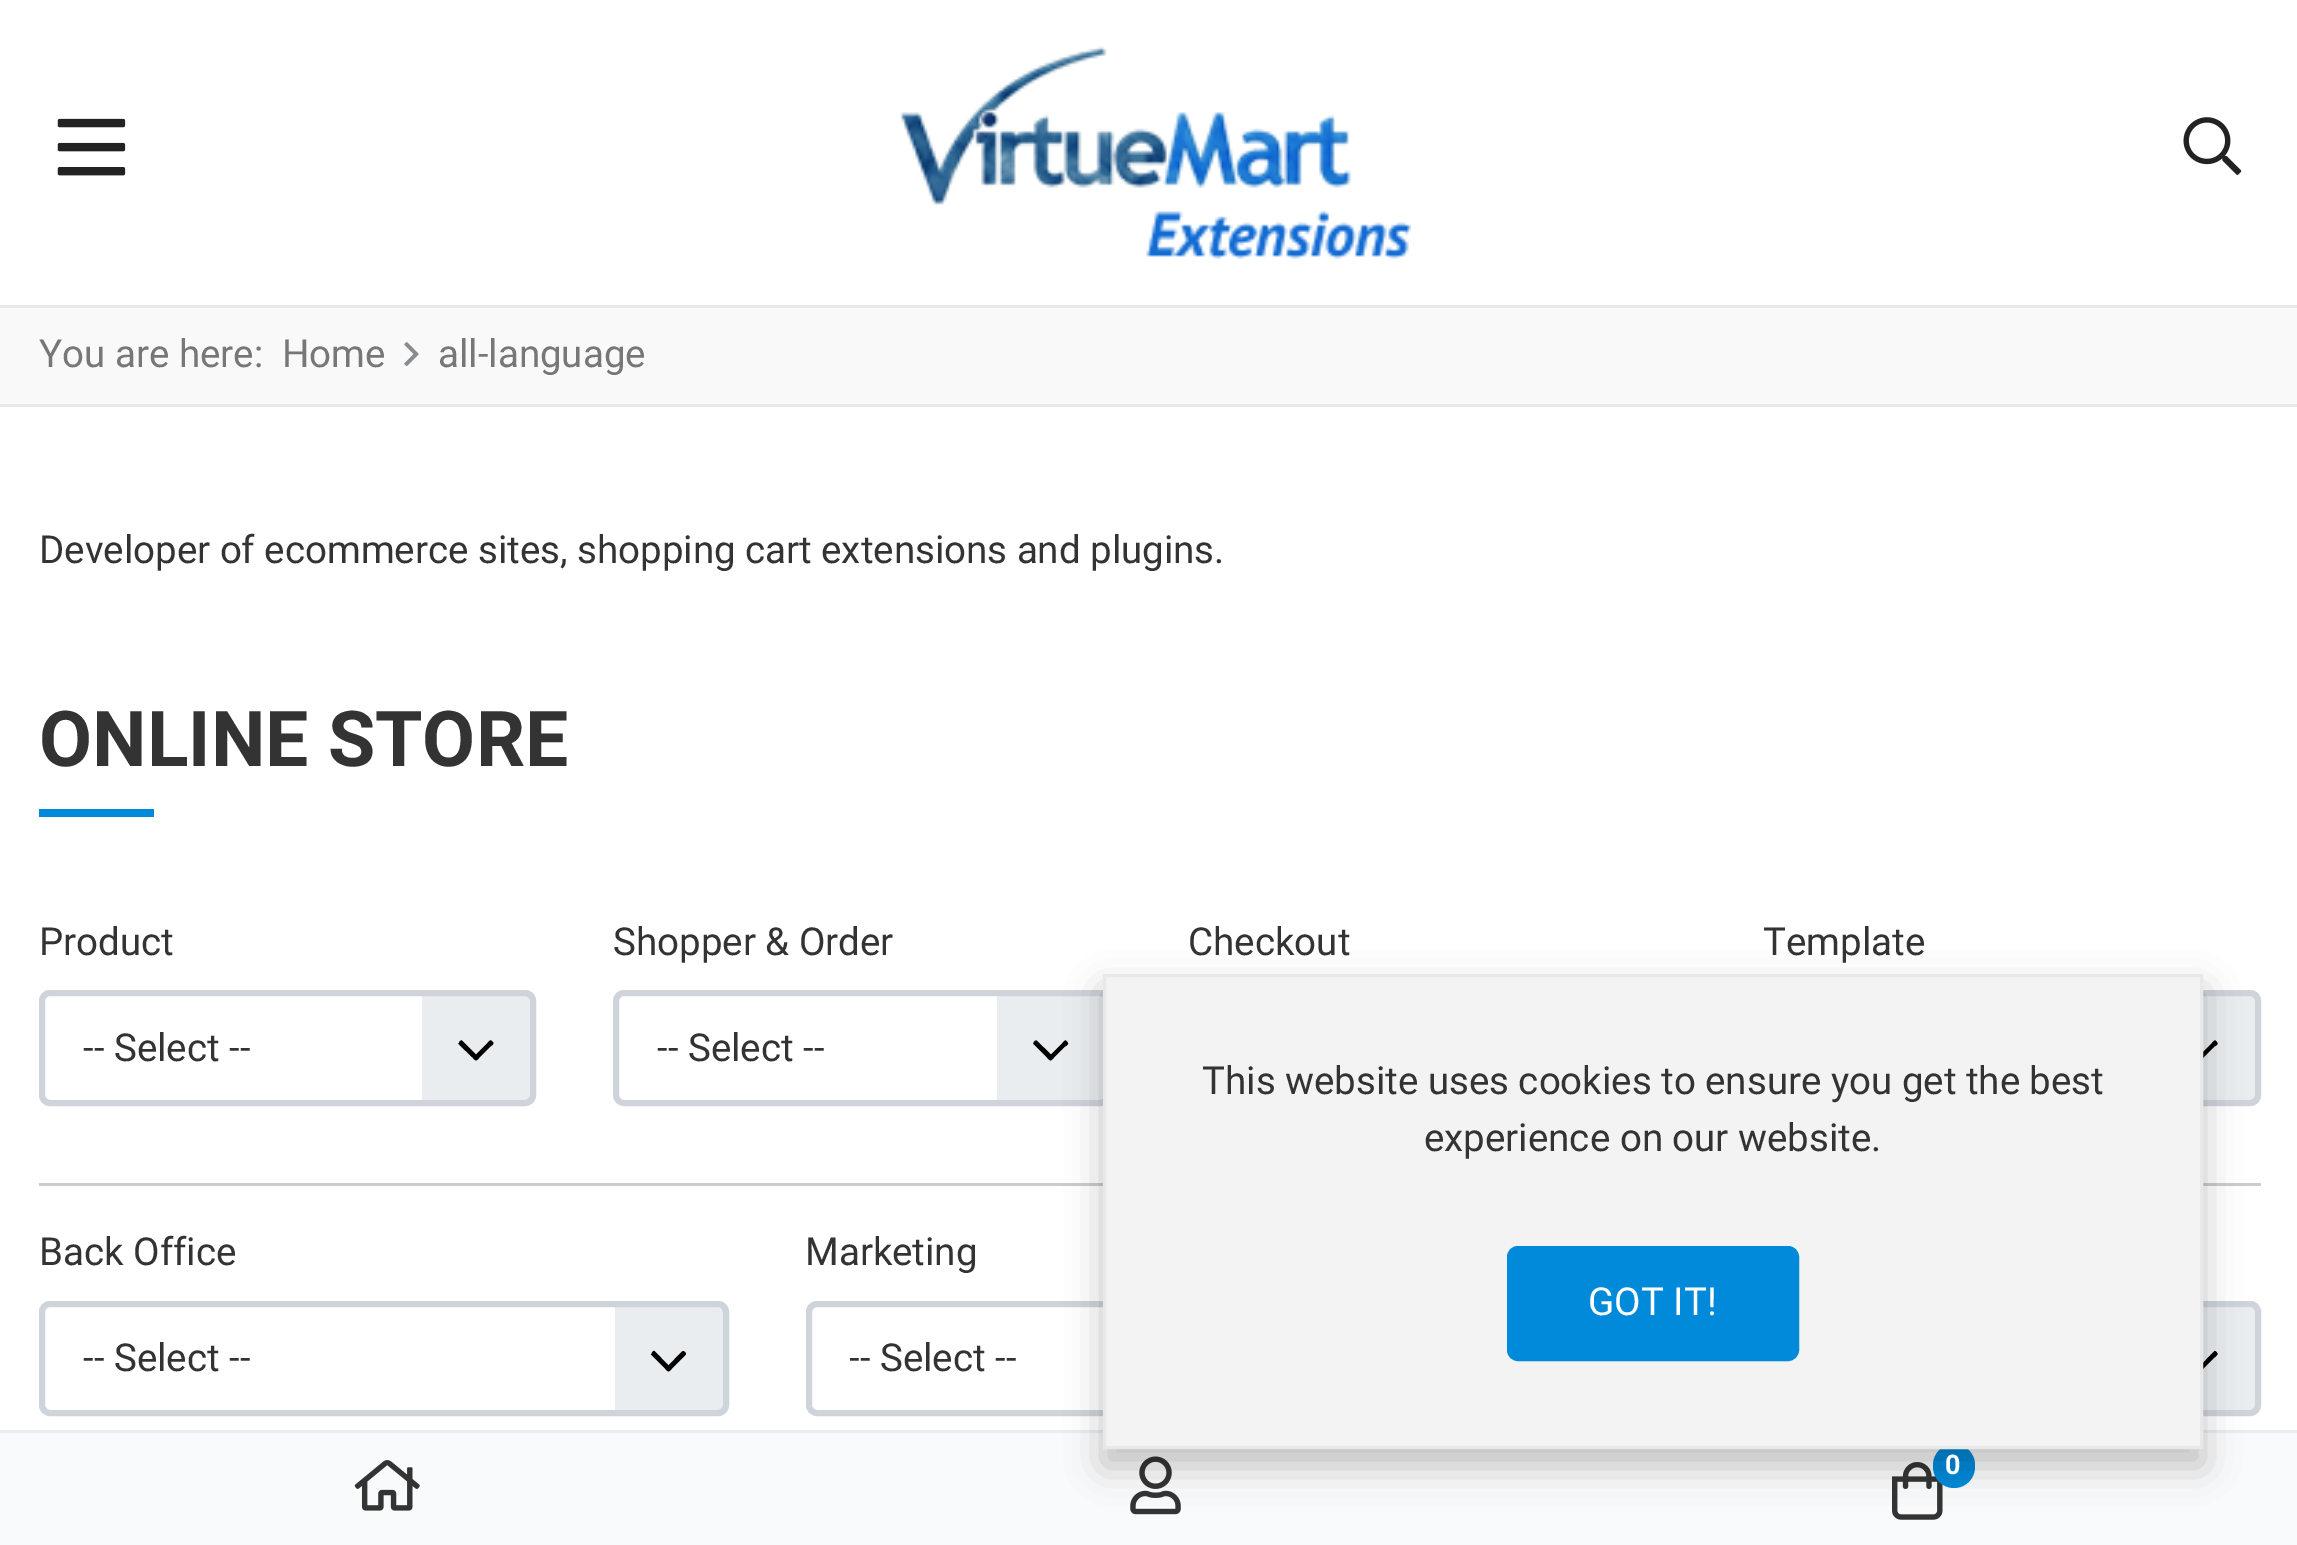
%!PS-Adobe-3.0
%%BoundingBox: 0 0 2297 1545
%%LanguageLevel: 3
%%Pages: 1
%%EndComments
%%BeginProlog
/setink { 3 { 255 div 3 1 roll } repeat setrgbcolor } def
/usefont { [ exch dup neg 0 0 3 -1 roll 0 0 ] selectfont } def
/drawtext { setink usefont moveto show } def
/fillbox { setink rectfill } def
/setalpha { dup .setfillconstantalpha .setstrokeconstantalpha } def
/rrect { 5 dict begin { /r /h /w /y /x } { exch def } forall
  x r add y moveto x w add y 2 copy h add r arct x w add y h add x 1 index r arct
  x y h add x y r arct x y 2 copy exch w add exch r arct closepath end } def
/softshadow { 12 dict begin { /a /b /q /h /w /y /x } { exch def } forall gsave /was 0 def
  9 -2 -9 { dup b mul 4 div /e exch def 1 sub .425 mul 2.718 exch exp 1 add a .99 .min exch div /now exch def
    1 1 now sub 1 was sub div sub setalpha /was now def
    w h .min e 2 mul add 0 gt { x e sub y e sub w e 2 mul add h e 2 mul add
      q e add b .6 mul add w h .min 2 div e add .min 0 .max rrect fill } if } for grestore end } def
/drawimage { 5 dict begin { /h /w /y /x /name } { exch def } forall
  gsave x y translate w h scale
  w h 8 [w 0 0 h 0 0] name (r) file false 3 colorimage grestore end } def
%%EndProlog
%%BeginSetup
<< /PageSize [2297 1545] /PageUsesTransparency true >> setpagedevice
%%EndSetup
%%Page: 1 1
0 .pushpdf14devicefilter
0 1545 translate 1 -1 scale
4 setmiterlimit
0 0 2297 1545 255 255 255 fillbox
0 308 2297 96 249 249 249 fillbox
0 305 2297 3 232 232 232 fillbox
0 404 2297 3 232 232 232 fillbox
(You are here:) 39 367 /Roboto-Regular 38.5 119 119 119 drawtext
(Home) 282 367 /Roboto-Regular 38.5 119 119 119 drawtext
(assets/img1.rgb) 404 342 15 24 drawimage
(all-language) 438 367 /Roboto-Regular 38.5 119 119 119 drawtext
(Developer of ecommerce sites, shopping cart extensions and plugins.) 39 563 /Roboto-Regular 38.5 51 51 51 drawtext
(ONLINE STORE) 39 766 /Roboto-Bold 77 51 51 51 drawtext
39 809 115 8 0 138 217 fillbox
(Product) 39 955 /Roboto-Regular 38.5 51 51 51 drawtext
234 237 240 setink
39 990 497 116 11 rrect fill
0 0 0 setink
458.5 1044 moveto 472.5 1057.5 lineto 476.5 1061.5 475.5 1061.5 479.5 1057.5 curveto 490.5 1046.5 lineto 491 1046 493.5 1044.5 493.5 1043 curveto 492.5 1041.5 lineto 490 1039.5 490 1040.5 487.5 1043 curveto 476 1054.5 lineto 462 1040.5 lineto 460.5 1040 459 1042 459 1043 curveto 458 1043.5 458.5 1043.5 458.5 1044 curveto closepath fill
255 255 255 setink
50 990 moveto 422 990 lineto 422 1106 lineto 50 1106 lineto 44 1106 39 1101 39 1095 curveto 39 1001 lineto 39 995 44 990 50 990 curveto closepath fill
206 212 218 setink
6 setlinewidth
42 993 491 110 8 rrect stroke
(-- Select --) 83 1061 /Roboto-Regular 38.5 51 51 51 drawtext
(Shopper & Order) 613 955 /Roboto-Regular 38.5 51 51 51 drawtext
234 237 240 setink
613 990 498 116 11 rrect fill
0 0 0 setink
1033.5 1044 moveto 1047 1057.5 lineto 1051 1061.5 1050 1061.5 1054 1057.5 curveto 1065 1046.5 lineto 1066 1046 1068.5 1044.5 1068 1043 curveto 1067 1041.5 lineto 1065 1039.5 1065 1040.5 1062.5 1043 curveto 1051 1054.5 lineto 1036.5 1040.5 lineto 1035.5 1040 1033.5 1042 1033.5 1043 curveto 1033 1043.5 1033 1043.5 1033.5 1044 curveto closepath fill
255 255 255 setink
624 990 moveto 997 990 lineto 997 1106 lineto 624 1106 lineto 618 1106 613 1101 613 1095 curveto 613 1001 lineto 613 995 618 990 624 990 curveto closepath fill
206 212 218 setink
616 993 492 110 8 rrect stroke
(-- Select --) 657 1061 /Roboto-Regular 38.5 51 51 51 drawtext
(Checkout) 1188 955 /Roboto-Regular 38.5 51 51 51 drawtext
(Template) 1763 955 /Roboto-Regular 38.5 51 51 51 drawtext
234 237 240 setink
1763 990 498 116 11 rrect fill
0 0 0 setink
2183 1044 moveto 2196.5 1057.5 lineto 2200.5 1061.5 2199.5 1061.5 2203.5 1057.5 curveto 2214.5 1046.5 lineto 2215.5 1046 2218 1044.5 2217.5 1043 curveto 2216.5 1041.5 lineto 2214.5 1039.5 2214.5 1040.5 2212 1043 curveto 2200.5 1054.5 lineto 2186 1040.5 lineto 2185 1040 2183 1042 2183 1043 curveto 2182.5 1043.5 2182.5 1043.5 2183 1044 curveto closepath fill
206 212 218 setink
1766 993 492 110 8 rrect stroke
39 1183 2222 3 204 204 204 fillbox
(Back Office) 39 1265 /Roboto-Regular 38.5 51 51 51 drawtext
234 237 240 setink
39 1301 690 115 11 rrect fill
0 0 0 setink
651 1354.5 moveto 665 1368.5 lineto 669 1372.5 668 1372.5 672 1368.5 curveto 683 1357.5 lineto 683.5 1356.5 686 1355 686 1353.5 curveto 685 1352 lineto 682.5 1350 682.5 1351.5 680 1353.5 curveto 668.5 1365.5 lineto 654.5 1351 lineto 653 1350.5 651.5 1353 651.5 1354 curveto 650.5 1354 651 1354.5 651 1354.5 curveto closepath fill
255 255 255 setink
50 1301 moveto 615 1301 lineto 615 1416 lineto 50 1416 lineto 44 1416 39 1411 39 1405 curveto 39 1312 lineto 39 1306 44 1301 50 1301 curveto closepath fill
206 212 218 setink
42 1304 684 109 8 rrect stroke
(-- Select --) 83 1371 /Roboto-Regular 38.5 51 51 51 drawtext
(Marketing) 805 1265 /Roboto-Regular 38.5 51 51 51 drawtext
206 212 218 setink
809 1304 681 109 8 rrect stroke
gsave
850 1331 522 58 rectclip
(-- Select --) 849 1371 /Roboto-Regular 38.5 51 51 51 drawtext
grestore
234 237 240 setink
1570 1301 691 115 11 rrect fill
0 0 0 setink
2183 1354.5 moveto 2196.5 1368.5 lineto 2200.5 1372.5 2199.5 1372.5 2203.5 1368.5 curveto 2214.5 1357.5 lineto 2215.5 1356.5 2218 1355 2217.5 1353.5 curveto 2216.5 1352 lineto 2214.5 1350 2214.5 1351.5 2212 1353.5 curveto 2200.5 1365.5 lineto 2186 1351 lineto 2185 1350.5 2183 1353 2183 1354 curveto 2182.5 1354 2182.5 1354.5 2183 1354.5 curveto closepath fill
206 212 218 setink
1573 1304 685 109 8 rrect stroke
0 1433 2297 112 249 250 251 fillbox
0 1430 2297 3 234 237 240 fillbox
(assets/img6.rgb) 1130 1456 51 59 drawimage
(assets/img7.rgb) 1892 1462 51 58 drawimage
0 138 217 setink
1933 1444 42 44 21 rrect fill
0 0 0 setink
1103 990 1100 476 0 18 0.23 softshadow
243 243 243 setink
1104.5 975.5 moveto 2201.5 975.5 lineto 2201.5 1447.5 lineto 1104.5 1447.5 lineto closepath gsave fill grestore
232 232 232 setink
3 setlinewidth
stroke
(This website uses cookies to ensure you get the best) 1202 1094 /Roboto-Regular 38.5 51 51 51 drawtext
(experience on our website.) 1424 1151 /Roboto-Regular 38.5 51 51 51 drawtext
0 138 217 setink
1510 1249 286 109 8 rrect gsave fill grestore
6 setlinewidth
stroke
(GOT IT!) 1588 1315 /Roboto-Regular 38.5 255 255 255 drawtext
(assets/img2.rgb) 57 118 69 58 drawimage
(assets/img3.rgb) 900 46 511 213 drawimage
(assets/img4.rgb) 2183 117 59 58 drawimage
(assets/img5.rgb) 354 1460 66 51 drawimage
(0) 1945 1474 /Roboto-Bold 27 255 255 255 drawtext
.poppdf14devicefilter showpage
%%EOF
